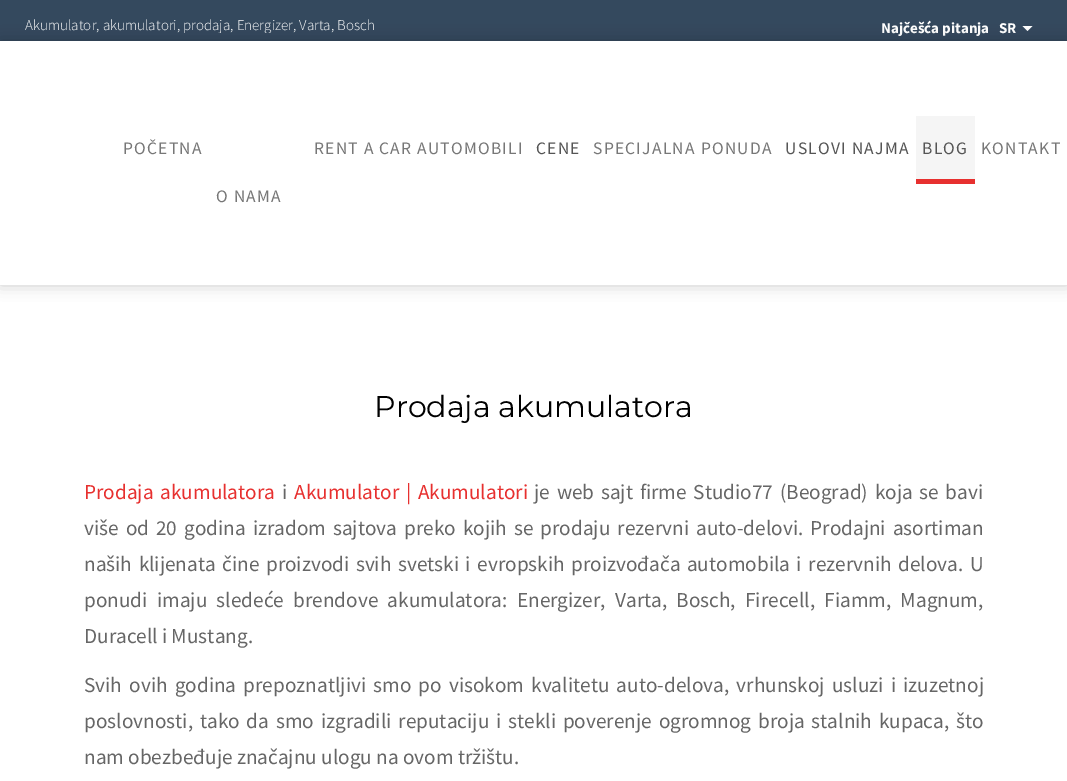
%!PS-Adobe-3.0
%%BoundingBox: 0 0 1067 781
%%LanguageLevel: 3
%%Pages: 1
%%EndComments
%%BeginProlog
/setink { 3 { 255 div 3 1 roll } repeat setrgbcolor } def
/usefont { [ exch dup neg 0 0 3 -1 roll 0 0 ] selectfont } def
/drawtext { setink usefont moveto show } def
/fillbox { setink rectfill } def
/setalpha { dup .setfillconstantalpha .setstrokeconstantalpha } def
/rrect { 5 dict begin { /r /h /w /y /x } { exch def } forall
  x r add y moveto x w add y 2 copy h add r arct x w add y h add x 1 index r arct
  x y h add x y r arct x y 2 copy exch w add exch r arct closepath end } def
/softshadow { 12 dict begin { /a /b /q /h /w /y /x } { exch def } forall gsave /was 0 def
  9 -2 -9 { dup b mul 4 div /e exch def 1 sub .425 mul 2.718 exch exp 1 add a .99 .min exch div /now exch def
    1 1 now sub 1 was sub div sub setalpha /was now def
    w h .min e 2 mul add 0 gt { x e sub y e sub w e 2 mul add h e 2 mul add
      q e add b .6 mul add w h .min 2 div e add .min 0 .max rrect fill } if } for grestore end } def
%%EndProlog
%%BeginSetup
<< /PageSize [1067 781] /PageUsesTransparency true >> setpagedevice
%%EndSetup
%%Page: 1 1
0 .pushpdf14devicefilter
0 781 translate 1 -1 scale
4 setmiterlimit
0 0 1067 781 255 255 255 fillbox
0 0 1067 41 52 73 94 fillbox
gsave
25 16 375 17 rectclip
(Akumulator, akumulatori, prodaja, Energizer, Varta, Bosch) 25 30 /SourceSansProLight-Light 15 255 255 255 drawtext
grestore
(Najčešća pitanja) 881 33 /SourceSansPro-Bold 15 255 255 255 drawtext
(SR) 999 33 /SourceSansPro-Bold 15 255 255 255 drawtext
1022.5 26 moveto 1032.5 26 lineto 1027.5 31 lineto closepath fill
0 0 0 setink
0 41 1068 244 0 7.5 0.2 softshadow
0 41 1067 244 255 255 255 fillbox
/SourceSansPro-Regular 17.5 usefont
119 119 119 setink
123 154 moveto 1.25 0 (POČETNA) ashow
314 154 moveto 1.25 0 (RENT A CAR AUTOMOBILI) ashow
85 85 85 setink
536 154 moveto 1.25 0 (CENE) ashow
119 119 119 setink
593 154 moveto 1.25 0 (SPECIJALNA PONUDA) ashow
85 85 85 setink
785 154 moveto 1.25 0 (USLOVI NAJMA) ashow
916 116 59 63 245 245 245 fillbox
916 179 59 5 231 48 47 fillbox
85 85 85 setink
922 154 moveto 1.25 0 (BLOG) ashow
119 119 119 setink
981 154 moveto 1.25 0 (KONTAKT) ashow
216 202 moveto 1.25 0 (O NAMA) ashow
(Prodaja akumulatora) 374 417 /Montserrat-Regular 30 0 0 0 drawtext
/SourceSansPro-Regular 21.25 usefont
231 48 47 setink
84 499 moveto 2.5 0 32 (Prodaja akumulatora) widthshow
(i) 282 499 /SourceSansPro-Regular 21.25 102 102 102 drawtext
231 48 47 setink
294 499 moveto 2.5 0 32 (Akumulator | Akumulatori) widthshow
102 102 102 setink
534 499 moveto 2.5 0 32 (je web sajt firme Studio77 \(Beograd\) koja se bavi) widthshow
84 535 moveto 2.75 0 32 (više od 20 godina izradom sajtova preko kojih se prodaju rezervni auto-delovi. Prodajni asortiman) widthshow
84 571 moveto 2.25 0 32 (naših klijenata čine proizvodi svih svetski i evropskih proizvođača automobila i rezervnih delova. U) widthshow
84 607 moveto 5 0 32 (ponudi imaju sledeće brendove akumulatora: Energizer, Varta, Bosch, Firecell, Fiamm, Magnum,) widthshow
(Duracell i Mustang.) 84 643 /SourceSansPro-Regular 21.25 102 102 102 drawtext
84 692 moveto 2.9 0 32 (Svih ovih godina prepoznatljivi smo po visokom kvalitetu auto-delova, vrhunskoj usluzi i izuzetnoj) widthshow
84 728 moveto 2.6 0 32 (poslovnosti, tako da smo izgradili reputaciju i stekli poverenje ogromnog broja stalnih kupaca, što) widthshow
(nam obezbeđuje značajnu ulogu na ovom tržištu.) 84 764 /SourceSansPro-Regular 21.25 102 102 102 drawtext
.poppdf14devicefilter showpage
%%EOF
